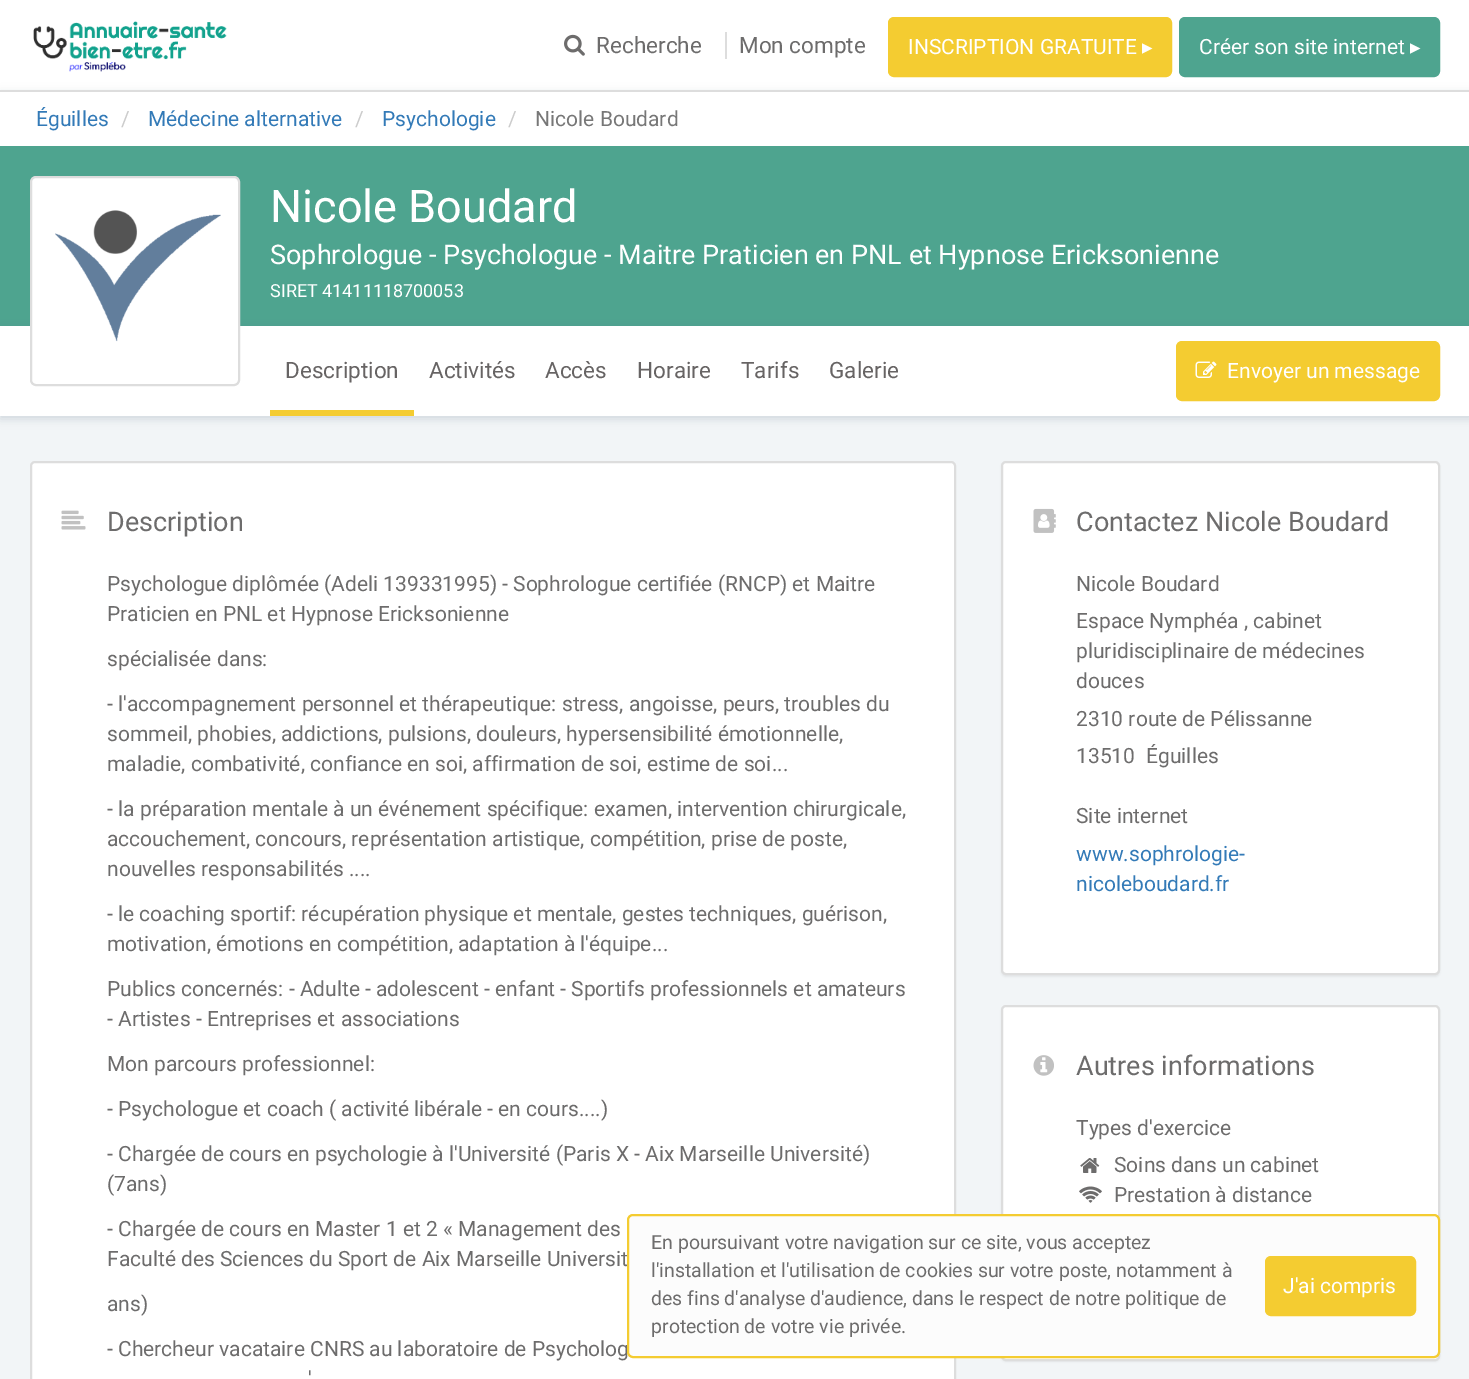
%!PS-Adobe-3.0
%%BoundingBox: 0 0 1469 1379
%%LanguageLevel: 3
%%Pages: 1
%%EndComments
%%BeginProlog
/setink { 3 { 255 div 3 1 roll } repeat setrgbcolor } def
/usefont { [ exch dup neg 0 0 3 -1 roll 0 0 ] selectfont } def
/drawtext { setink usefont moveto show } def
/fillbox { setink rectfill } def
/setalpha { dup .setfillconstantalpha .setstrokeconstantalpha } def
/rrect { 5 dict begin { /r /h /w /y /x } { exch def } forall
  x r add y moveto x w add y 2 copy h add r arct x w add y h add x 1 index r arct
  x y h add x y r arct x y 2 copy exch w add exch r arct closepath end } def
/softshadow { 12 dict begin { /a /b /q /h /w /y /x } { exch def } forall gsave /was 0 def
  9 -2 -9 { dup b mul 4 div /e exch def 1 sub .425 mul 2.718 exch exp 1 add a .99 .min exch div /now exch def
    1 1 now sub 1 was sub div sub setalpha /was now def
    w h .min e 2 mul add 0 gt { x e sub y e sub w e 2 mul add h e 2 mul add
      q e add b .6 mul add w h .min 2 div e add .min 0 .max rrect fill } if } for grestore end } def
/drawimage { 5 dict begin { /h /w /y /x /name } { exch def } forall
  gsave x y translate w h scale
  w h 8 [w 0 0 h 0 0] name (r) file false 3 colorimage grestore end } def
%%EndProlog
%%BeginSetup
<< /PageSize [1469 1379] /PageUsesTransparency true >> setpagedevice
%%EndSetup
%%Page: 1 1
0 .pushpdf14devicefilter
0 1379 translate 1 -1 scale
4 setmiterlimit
0 0 1469 1379 242 245 247 fillbox
0 0 1469 90 255 255 255 fillbox
(assets/img1.rgb) 33 21 194 51 drawimage
725 32 2 27 221 221 221 fillbox
(assets/img2.rgb) 564 34 21 22 drawimage
(Recherche) 596 53 /Roboto-Regular 22.5 109 108 108 drawtext
(Mon compte) 739 53 /Roboto-Regular 22.5 109 108 108 drawtext
244 204 49 setink
889 18 282 58 5 rrect gsave fill grestore
2 setlinewidth
stroke
(INSCRIPTION GRATUITE) 908 54 /Roboto-Regular 21 255 255 255 drawtext
(▸) 1142 54 /DejaVuSans-Regular 21 255 255 255 drawtext
78 164 143 setink
1180 18 259 58 5 rrect gsave fill grestore
stroke
(Créer son site internet) 1199 54 /Roboto-Regular 21 255 255 255 drawtext
(▸) 1410 54 /DejaVuSans-Regular 21 255 255 255 drawtext
67 95 113 setink
0 93 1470 56 0 4.5 0.2 softshadow
0 92 1469 54 255 255 255 fillbox
0 90 1469 2 221 221 221 fillbox
(Éguilles) 36 126 /Roboto-Regular 21 51 122 183 drawtext
(/) 121 126 /Roboto-Regular 21 204 204 204 drawtext
(Médecine alternative) 148 126 /Roboto-Regular 21 51 122 183 drawtext
(/) 355 126 /Roboto-Regular 21 204 204 204 drawtext
(Psychologie) 382 126 /Roboto-Regular 21 51 122 183 drawtext
(/) 508 126 /Roboto-Regular 21 204 204 204 drawtext
(Nicole Boudard) 535 126 /Roboto-Regular 21 119 119 119 drawtext
0 146 1469 180 78 164 143 fillbox
67 95 113 setink
0 329 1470 90 0 4.5 0.2 softshadow
0 326 1469 90 255 255 255 fillbox
31 177 208 208 5 rrect gsave fill grestore
221 221 221 setink
stroke
(assets/img3.rgb) 55 210 166 132 drawimage
(Nicole Boudard) 270 222 /Roboto-Regular 45 255 255 255 drawtext
(Sophrologue - Psychologue - Maitre Praticien en PNL et Hypnose Ericksonienne) 270 264 /Roboto-Regular 27 255 255 255 drawtext
(SIRET 41411118700053) 270 297 /Roboto-Regular 18 255 255 255 drawtext
(Description) 285 378 /Roboto-Regular 22.5 103 100 100 drawtext
270 410 144 6 244 204 49 fillbox
(Activités) 429 378 /Roboto-Regular 22.5 103 100 100 drawtext
(Accès) 545 378 /Roboto-Regular 22.5 103 100 100 drawtext
(Horaire) 637 378 /Roboto-Regular 22.5 103 100 100 drawtext
(Tarifs) 741 378 /Roboto-Regular 22.5 103 100 100 drawtext
(Galerie) 829 378 /Roboto-Regular 22.5 103 100 100 drawtext
244 204 49 setink
1177 342 262 58 5 rrect gsave fill grestore
stroke
(assets/img4.rgb) 1195 361 22 17 drawimage
(Envoyer un message) 1227 378 /Roboto-Regular 21 255 255 255 drawtext
31 462 924 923 4 rrect gsave fill grestore
221 221 221 setink
stroke
(assets/img5.rgb) 61 510 25 20 drawimage
(Description) 107 531 /Roboto-Regular 27 109 108 108 drawtext
(Psychologue diplômée \(Adeli 139331995\) - Sophrologue certifiée \(RNCP\) et Maitre) 107 591 /Roboto-Regular 21 109 108 108 drawtext
(Praticien en PNL et Hypnose Ericksonienne) 107 621 /Roboto-Regular 21 109 108 108 drawtext
(spécialisée dans:) 107 666 /Roboto-Regular 21 109 108 108 drawtext
(- l'accompagnement personnel et thérapeutique: stress, angoisse, peurs, troubles du) 107 711 /Roboto-Regular 21 109 108 108 drawtext
(sommeil, phobies, addictions, pulsions, douleurs, hypersensibilité émotionnelle,) 107 741 /Roboto-Regular 21 109 108 108 drawtext
(maladie, combativité, confiance en soi, affirmation de soi, estime de soi...) 107 771 /Roboto-Regular 21 109 108 108 drawtext
(- la préparation mentale à un événement spécifique: examen, intervention chirurgicale,) 107 816 /Roboto-Regular 21 109 108 108 drawtext
(accouchement, concours, représentation artistique, compétition, prise de poste,) 107 846 /Roboto-Regular 21 109 108 108 drawtext
(nouvelles responsabilités ....) 107 876 /Roboto-Regular 21 109 108 108 drawtext
(- le coaching sportif: récupération physique et mentale, gestes techniques, guérison,) 107 921 /Roboto-Regular 21 109 108 108 drawtext
(motivation, émotions en compétition, adaptation à l'équipe...) 107 951 /Roboto-Regular 21 109 108 108 drawtext
(Publics concernés: - Adulte - adolescent - enfant - Sportifs professionnels et amateurs) 107 996 /Roboto-Regular 21 109 108 108 drawtext
(- Artistes - Entreprises et associations) 107 1026 /Roboto-Regular 21 109 108 108 drawtext
(Mon parcours professionnel:) 107 1071 /Roboto-Regular 21 109 108 108 drawtext
(- Psychologue et coach \( activité libérale - en cours....\)) 107 1116 /Roboto-Regular 21 109 108 108 drawtext
(- Chargée de cours en psychologie à l'Université \(Paris X - Aix Marseille Université\)) 107 1161 /Roboto-Regular 21 109 108 108 drawtext
(\(7ans\)) 107 1191 /Roboto-Regular 21 109 108 108 drawtext
(- Chargée de cours en Master 1 et 2 « Management des) 107 1236 /Roboto-Regular 21 109 108 108 drawtext
(Faculté des Sciences du Sport de Aix Marseille Universit) 107 1266 /Roboto-Regular 21 109 108 108 drawtext
(ans\)) 107 1311 /Roboto-Regular 21 109 108 108 drawtext
(- Chercheur vacataire CNRS au laboratoire de Psycholog) 107 1356 /Roboto-Regular 21 109 108 108 drawtext
(') 308 1386 /Roboto-Regular 21 109 108 108 drawtext
0 0 0 setink
1001 462 439 515 5 1 0.05 softshadow
255 255 255 setink
1002 462 437 512 4 rrect gsave fill grestore
221 221 221 setink
stroke
(assets/img6.rgb) 1033 508 23 25 drawimage
(Contactez Nicole Boudard) 1076 531 /Roboto-Regular 27 109 108 108 drawtext
(Nicole Boudard) 1076 591 /Roboto-Regular 21 109 108 108 drawtext
(Espace Nymphéa , cabinet) 1076 628 /Roboto-Regular 21 109 108 108 drawtext
(pluridisciplinaire de médecines) 1076 658 /Roboto-Regular 21 109 108 108 drawtext
(douces) 1076 688 /Roboto-Regular 21 109 108 108 drawtext
(2310 route de Pélissanne) 1076 726 /Roboto-Regular 21 109 108 108 drawtext
(13510) 1076 763 /Roboto-Regular 21 109 108 108 drawtext
(Éguilles) 1146 763 /Roboto-Regular 21 109 108 108 drawtext
(Site internet) 1076 823 /Roboto-Regular 21 109 108 108 drawtext
(www.sophrologie-) 1076 861 /Roboto-Regular 21 51 122 183 drawtext
(nicoleboudard.fr) 1076 891 /Roboto-Regular 21 51 122 183 drawtext
0 0 0 setink
1001 1007 439 355 5 1 0.05 softshadow
255 255 255 setink
1002 1006 437 354 4 rrect gsave fill grestore
221 221 221 setink
stroke
(assets/img7.rgb) 1033 1055 21 21 drawimage
(Autres informations) 1076 1075 /Roboto-Regular 27 109 108 108 drawtext
(Types d'exercice) 1076 1135 /Roboto-Regular 21 109 108 108 drawtext
(assets/img8.rgb) 1080 1158 20 15 drawimage
(Soins dans un cabinet) 1114 1172 /Roboto-Regular 21 109 108 108 drawtext
(assets/img9.rgb) 1079 1186 23 17 drawimage
(Prestation à distance) 1114 1202 /Roboto-Regular 21 109 108 108 drawtext
252 252 252 setink
628 1215 811 142 5 rrect gsave fill grestore
244 204 49 setink
stroke
(En poursuivant votre navigation sur ce site, vous acceptez) 651 1249 /Roboto-Regular 19.5 109 108 108 drawtext
(l'installation et l'utilisation de cookies sur votre poste, notamment à) 651 1277 /Roboto-Regular 19.5 109 108 108 drawtext
(des fins d'analyse d'audience, dans le respect de notre politique de) 651 1305 /Roboto-Regular 19.5 109 108 108 drawtext
(protection de votre vie privée.) 651 1333 /Roboto-Regular 19.5 109 108 108 drawtext
244 204 49 setink
1266 1257 149 58 5 rrect gsave fill grestore
stroke
(J'ai compris) 1283 1293 /Roboto-Regular 21 255 255 255 drawtext
.poppdf14devicefilter showpage
%%EOF
